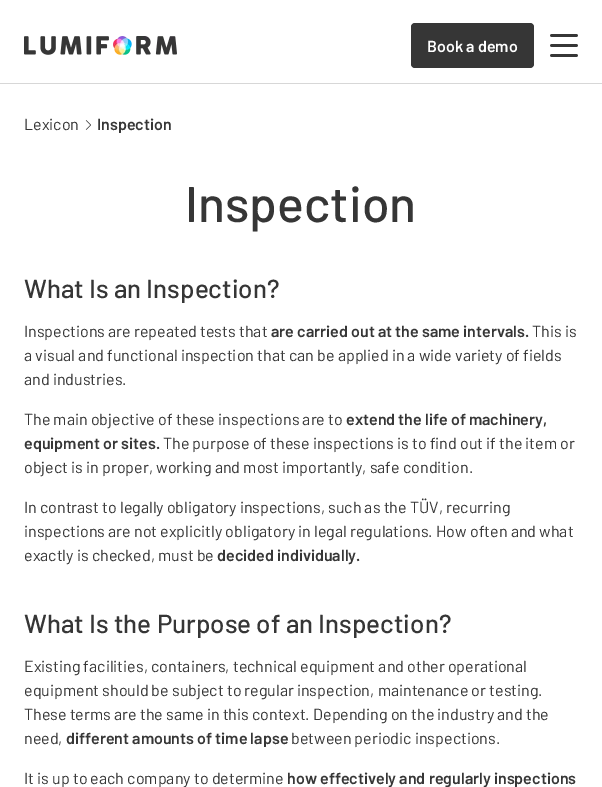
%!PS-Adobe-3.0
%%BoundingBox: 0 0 602 787
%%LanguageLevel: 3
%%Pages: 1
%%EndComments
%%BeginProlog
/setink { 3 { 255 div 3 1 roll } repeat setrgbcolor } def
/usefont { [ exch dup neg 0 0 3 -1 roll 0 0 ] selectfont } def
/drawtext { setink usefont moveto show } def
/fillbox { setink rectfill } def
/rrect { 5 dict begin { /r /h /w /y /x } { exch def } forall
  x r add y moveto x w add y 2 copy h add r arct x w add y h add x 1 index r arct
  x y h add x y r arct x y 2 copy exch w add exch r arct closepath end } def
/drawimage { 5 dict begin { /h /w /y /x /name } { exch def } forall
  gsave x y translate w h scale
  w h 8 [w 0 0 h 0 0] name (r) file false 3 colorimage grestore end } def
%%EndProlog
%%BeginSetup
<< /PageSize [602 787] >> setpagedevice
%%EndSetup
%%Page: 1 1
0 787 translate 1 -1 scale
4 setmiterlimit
0 0 602 787 255 255 255 fillbox
0 83 602 1 215 215 215 fillbox
(assets/img1.rgb) 24 36 153 19 drawimage
54 54 54 setink
411 23 123 45 4 rrect fill
(Book a demo) 427 52 /Barlow-SemiBold 16 255 255 255 drawtext
(assets/img2.rgb) 550 34 28 23 drawimage
(Lexicon) 24 130 /Barlow-Regular 16 54 54 54 drawtext
(assets/img3.rgb) 85 120 6 10 drawimage
(Inspection) 97 130 /Barlow-SemiBold 16 54 54 54 drawtext
(Inspection) 185 222 /Barlow-Medium 50 54 54 54 drawtext
(What Is an Inspection?) 24 298 /Barlow-Medium 26 54 54 54 drawtext
(Inspections are repeated tests that) 24 337 /Barlow-Regular 16 54 54 54 drawtext
(are carried out at the same intervals.) 271 337 /Barlow-SemiBold 16 54 54 54 drawtext
(This is) 532 337 /Barlow-Regular 16 54 54 54 drawtext
(a visual and functional inspection that can be applied in a wide variety of fields) 24 361 /Barlow-Regular 16 54 54 54 drawtext
(and industries.) 24 385 /Barlow-Regular 16 54 54 54 drawtext
(The main objective of these inspections are to) 24 425 /Barlow-Regular 16 54 54 54 drawtext
(extend the life of machinery,) 346 425 /Barlow-SemiBold 16 54 54 54 drawtext
(equipment or sites.) 24 449 /Barlow-SemiBold 16 54 54 54 drawtext
(The purpose of these inspections is to find out if the item or) 163 449 /Barlow-Regular 16 54 54 54 drawtext
(object is in proper, working and most importantly, safe condition.) 24 473 /Barlow-Regular 16 54 54 54 drawtext
(In contrast to legally obligatory inspections, such as the TÜV, recurring) 24 513 /Barlow-Regular 16 54 54 54 drawtext
(inspections are not explicitly obligatory in legal regulations. How often and what) 24 537 /Barlow-Regular 16 54 54 54 drawtext
(exactly is checked, must be) 24 561 /Barlow-Regular 16 54 54 54 drawtext
(decided individually.) 217 561 /Barlow-SemiBold 16 54 54 54 drawtext
(What Is the Purpose of an Inspection?) 24 633 /Barlow-Medium 26 54 54 54 drawtext
(Existing facilities, containers, technical equipment and other operational) 24 672 /Barlow-Regular 16 54 54 54 drawtext
(equipment should be subject to regular inspection, maintenance or testing.) 24 696 /Barlow-Regular 16 54 54 54 drawtext
(These terms are the same in this context. Depending on the industry and the) 24 720 /Barlow-Regular 16 54 54 54 drawtext
(need,) 24 744 /Barlow-Regular 16 54 54 54 drawtext
(different amounts of time lapse) 66 744 /Barlow-SemiBold 16 54 54 54 drawtext
(between periodic inspections.) 291 744 /Barlow-Regular 16 54 54 54 drawtext
(It is up to each company to determine) 24 784 /Barlow-Regular 16 54 54 54 drawtext
(how effectively and regularly inspections) 287 784 /Barlow-SemiBold 16 54 54 54 drawtext
showpage
%%EOF
